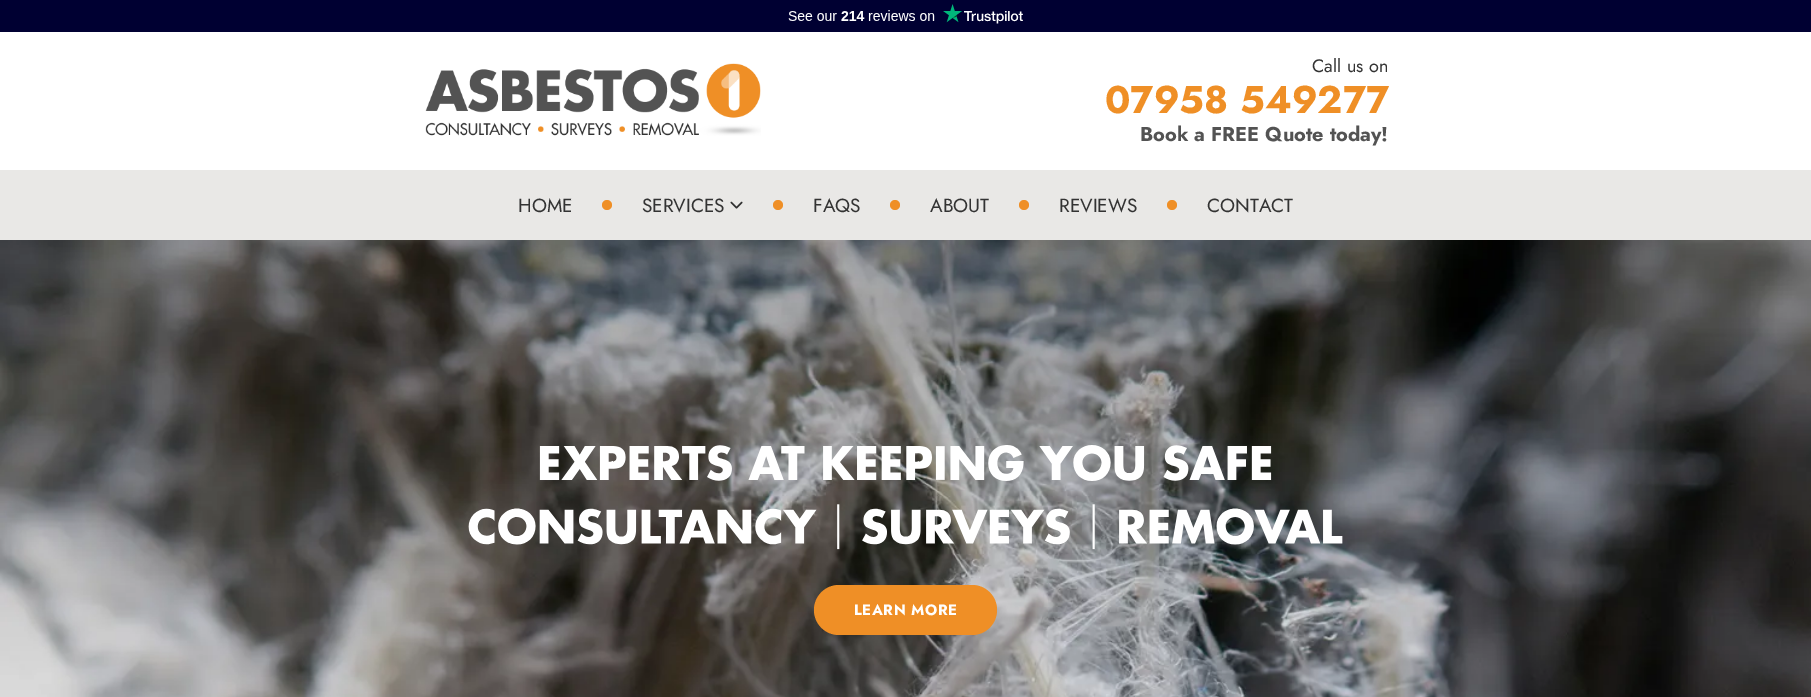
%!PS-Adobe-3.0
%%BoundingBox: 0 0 1811 697
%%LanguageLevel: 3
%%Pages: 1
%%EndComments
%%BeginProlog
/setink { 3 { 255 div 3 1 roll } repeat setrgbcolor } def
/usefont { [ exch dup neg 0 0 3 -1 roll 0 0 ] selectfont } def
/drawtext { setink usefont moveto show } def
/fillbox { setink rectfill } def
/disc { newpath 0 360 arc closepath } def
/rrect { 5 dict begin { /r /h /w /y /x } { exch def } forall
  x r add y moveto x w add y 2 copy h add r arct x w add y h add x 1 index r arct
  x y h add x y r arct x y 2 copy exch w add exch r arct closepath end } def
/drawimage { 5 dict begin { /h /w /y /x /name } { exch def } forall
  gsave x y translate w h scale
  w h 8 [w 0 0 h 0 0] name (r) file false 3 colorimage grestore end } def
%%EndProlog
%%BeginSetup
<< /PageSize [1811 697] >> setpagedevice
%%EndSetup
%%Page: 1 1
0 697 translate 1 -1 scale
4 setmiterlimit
0 0 1811 697 255 255 255 fillbox
0 0 1811 32 0 0 50 fillbox
(assets/img1.rgb) 788 4 235 20 drawimage
(assets/img2.rgb) 425 63 336 73 drawimage
(Call us on) 1312 72 /Jost-Regular 18 51 51 51 drawtext
(07958 549277) 1105 113 /Jost-Bold 38.5 239 143 38 drawtext
(Book a FREE Quote today!) 1140 141 /Jost-Bold 20 83 83 83 drawtext
0 170 1811 70 233 232 230 fillbox
(HOME) 518 212 /Jost-Regular 19 51 51 51 drawtext
239 143 38 setink
607 205 5 disc fill
(SERVICES) 642 212 /Jost-Regular 19 51 51 51 drawtext
(assets/img3.rgb) 730 201 13 8 drawimage
239 143 38 setink
778 205 5 disc fill
(FAQS) 813 212 /Jost-Regular 19 51 51 51 drawtext
239 143 38 setink
895 205 5 disc fill
(ABOUT) 930 212 /Jost-Regular 19 51 51 51 drawtext
239 143 38 setink
1024 205 5 disc fill
(REVIEWS) 1059 212 /Jost-Regular 19 51 51 51 drawtext
239 143 38 setink
1172 205 5 disc fill
(CONTACT) 1207 212 /Jost-Regular 19 51 51 51 drawtext
(assets/img4.rgb) 0 240 1811 457 drawimage
(assets/img5.rgb) 468 445 875 105 drawimage
239 143 38 setink
814 585 183 50 25 rrect fill
/Jost-Bold 15 usefont
255 255 255 setink
854 615 moveto 0.5 0 (LEARN MORE) ashow
showpage
%%EOF
